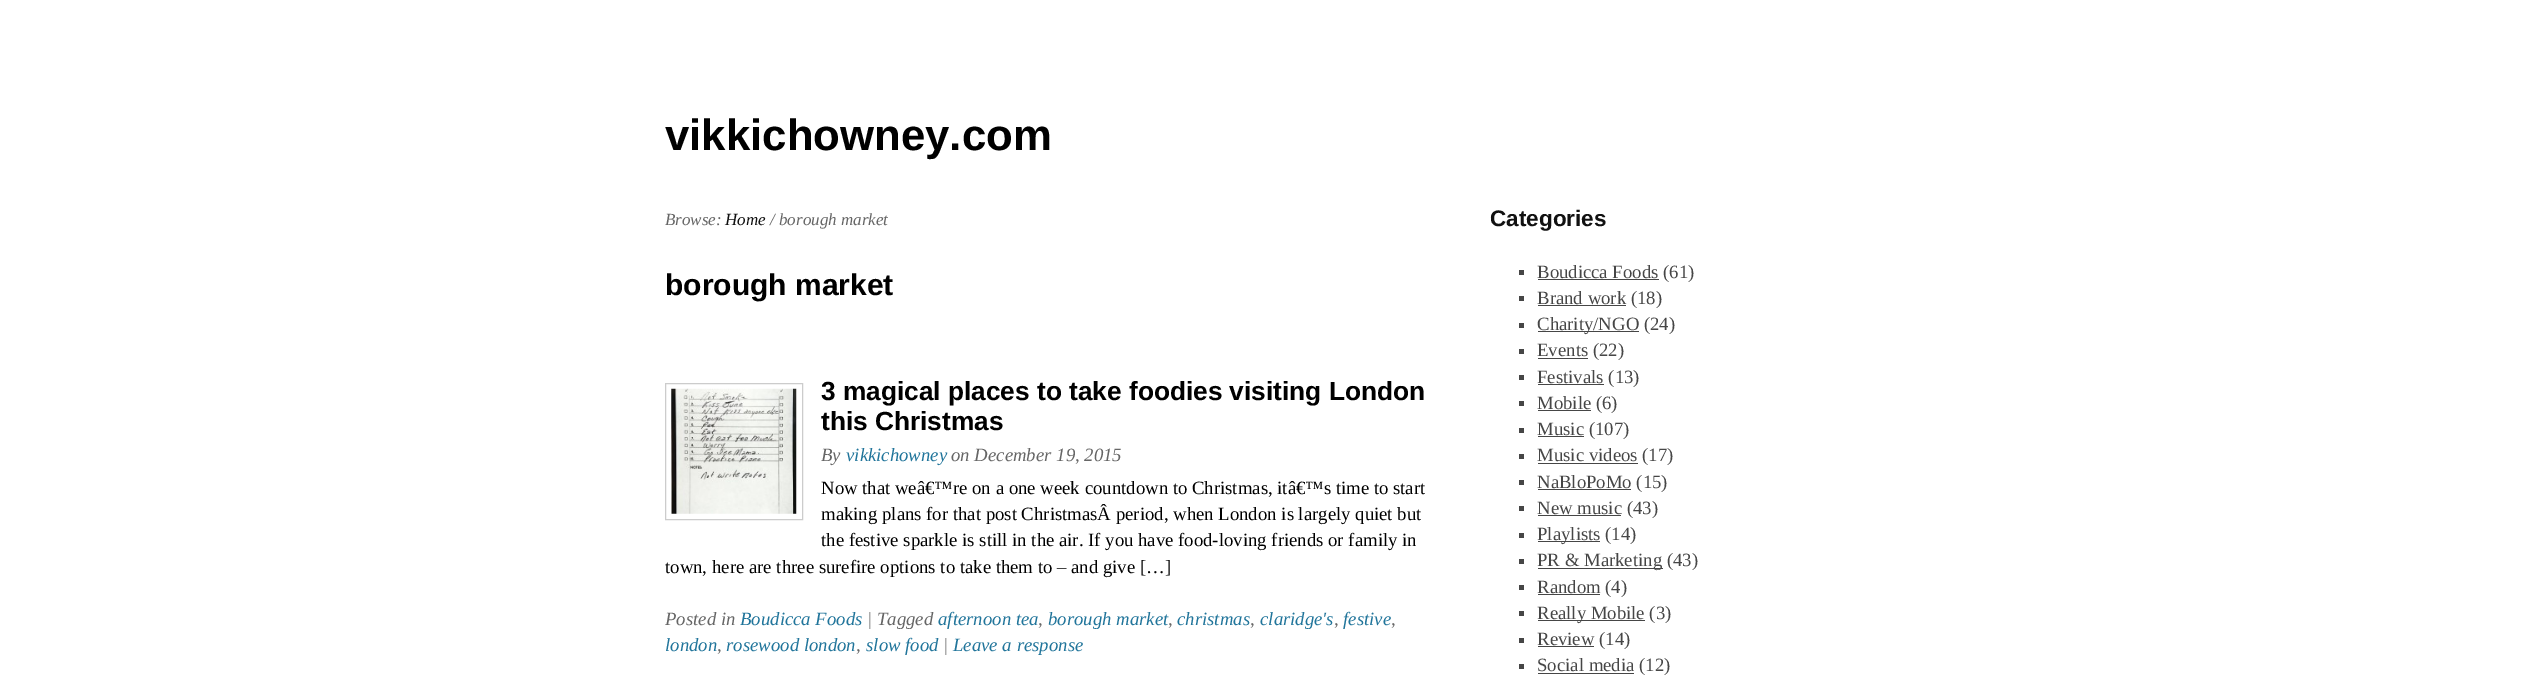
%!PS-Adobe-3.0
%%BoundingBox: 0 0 2530 690
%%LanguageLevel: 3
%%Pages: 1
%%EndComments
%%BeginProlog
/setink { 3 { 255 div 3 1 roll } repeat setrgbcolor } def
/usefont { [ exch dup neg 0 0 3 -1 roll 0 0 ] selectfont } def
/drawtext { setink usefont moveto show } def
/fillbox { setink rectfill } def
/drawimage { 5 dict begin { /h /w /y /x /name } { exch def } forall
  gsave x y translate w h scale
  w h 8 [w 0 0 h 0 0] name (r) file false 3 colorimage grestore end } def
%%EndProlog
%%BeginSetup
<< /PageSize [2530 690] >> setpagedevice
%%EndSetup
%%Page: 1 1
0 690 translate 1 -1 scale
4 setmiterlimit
0 0 2530 690 255 255 255 fillbox
(vikkichowney.com) 665 150 /LiberationSans-Bold 43.75 0 0 0 drawtext
(Browse:) 665 225 /LiberationSerif-Italic 17 102 102 102 drawtext
(Home) 725 225 /LiberationSerif-Italic 17 17 17 17 drawtext
(/ borough market) 770 225 /LiberationSerif-Italic 17 102 102 102 drawtext
(borough market) 665 295 /LiberationSans-Bold 30 0 0 0 drawtext
204 204 204 setink
665.5 383.5 137 136 rectstroke
(assets/img1.rgb) 671 388 126 126 drawimage
(3 magical places to take foodies visiting London) 821 400 /LiberationSans-Bold 26.25 0 0 0 drawtext
(this Christmas) 821 430 /LiberationSans-Bold 26.25 0 0 0 drawtext
(By) 821 461 /LiberationSerif-Italic 18.75 102 102 102 drawtext
(vikkichowney) 846 461 /LiberationSerif-Italic 18.75 33 117 155 drawtext
(on December 19, 2015) 951 461 /LiberationSerif-Italic 18.75 102 102 102 drawtext
(Now that weâ€™re on a one week countdown to Christmas, itâ€™s time to start) 821 494 /LiberationSerif-Regular 18.75 0 0 0 drawtext
(making plans for that post ChristmasÂ period, when London is largely quiet but) 821 520 /LiberationSerif-Regular 18.75 0 0 0 drawtext
(the festive sparkle is still in the air. If you have food-loving friends or family in) 821 546 /LiberationSerif-Regular 18.75 0 0 0 drawtext
(town, here are three surefire options to take them to – and give […]) 665 573 /LiberationSerif-Regular 18.75 0 0 0 drawtext
(Posted in) 665 625 /LiberationSerif-Italic 18.75 102 102 102 drawtext
(Boudicca Foods) 740 625 /LiberationSerif-Italic 18.75 33 117 155 drawtext
(| Tagged) 867 625 /LiberationSerif-Italic 18.75 102 102 102 drawtext
(afternoon tea) 938 625 /LiberationSerif-Italic 18.75 33 117 155 drawtext
(,) 1038 625 /LiberationSerif-Italic 18.75 102 102 102 drawtext
(borough market) 1048 625 /LiberationSerif-Italic 18.75 33 117 155 drawtext
(,) 1168 625 /LiberationSerif-Italic 18.75 102 102 102 drawtext
(christmas) 1177 625 /LiberationSerif-Italic 18.75 33 117 155 drawtext
(,) 1250 625 /LiberationSerif-Italic 18.75 102 102 102 drawtext
(claridge's) 1260 625 /LiberationSerif-Italic 18.75 33 117 155 drawtext
(,) 1334 625 /LiberationSerif-Italic 18.75 102 102 102 drawtext
(festive) 1343 625 /LiberationSerif-Italic 18.75 33 117 155 drawtext
(,) 1391 625 /LiberationSerif-Italic 18.75 102 102 102 drawtext
(london) 665 651 /LiberationSerif-Italic 18.75 33 117 155 drawtext
(,) 717 651 /LiberationSerif-Italic 18.75 102 102 102 drawtext
(rosewood london) 726 651 /LiberationSerif-Italic 18.75 33 117 155 drawtext
(,) 856 651 /LiberationSerif-Italic 18.75 102 102 102 drawtext
(slow food) 866 651 /LiberationSerif-Italic 18.75 33 117 155 drawtext
(|) 943 651 /LiberationSerif-Italic 18.75 102 102 102 drawtext
(Leave a response) 953 651 /LiberationSerif-Italic 18.75 33 117 155 drawtext
(Categories) 1490 226 /LiberationSans-Bold 22.5 17 17 17 drawtext
1519 270 5 5 70 70 70 fillbox
1538 279 121 1 70 70 70 fillbox
(Boudicca Foods \(61\)) 1537 278 /LiberationSerif-Regular 18.75 70 70 70 drawtext
1519 296 5 5 70 70 70 fillbox
1538 305 88 1 70 70 70 fillbox
(Brand work \(18\)) 1537 304 /LiberationSerif-Regular 18.75 70 70 70 drawtext
1519 323 5 5 70 70 70 fillbox
1538 331 101 1 70 70 70 fillbox
(Charity/NGO \(24\)) 1537 330 /LiberationSerif-Regular 18.75 70 70 70 drawtext
1519 349 5 5 70 70 70 fillbox
1538 358 50 1 70 70 70 fillbox
(Events \(22\)) 1537 356 /LiberationSerif-Regular 18.75 70 70 70 drawtext
1519 375 5 5 70 70 70 fillbox
1538 384 66 1 70 70 70 fillbox
(Festivals \(13\)) 1537 383 /LiberationSerif-Regular 18.75 70 70 70 drawtext
1519 401 5 5 70 70 70 fillbox
1538 410 53 1 70 70 70 fillbox
(Mobile \(6\)) 1537 409 /LiberationSerif-Regular 18.75 70 70 70 drawtext
1519 428 5 5 70 70 70 fillbox
1538 436 46 1 70 70 70 fillbox
(Music \(107\)) 1537 435 /LiberationSerif-Regular 18.75 70 70 70 drawtext
1519 454 5 5 70 70 70 fillbox
1538 463 100 1 70 70 70 fillbox
(Music videos \(17\)) 1537 461 /LiberationSerif-Regular 18.75 70 70 70 drawtext
1519 480 5 5 70 70 70 fillbox
1538 489 93 1 70 70 70 fillbox
(NaBloPoMo \(15\)) 1537 488 /LiberationSerif-Regular 18.75 70 70 70 drawtext
1519 506 5 5 70 70 70 fillbox
1538 515 83 1 70 70 70 fillbox
(New music \(43\)) 1537 514 /LiberationSerif-Regular 18.75 70 70 70 drawtext
1519 533 5 5 70 70 70 fillbox
1538 541 62 1 70 70 70 fillbox
(Playlists \(14\)) 1537 540 /LiberationSerif-Regular 18.75 70 70 70 drawtext
1519 559 5 5 70 70 70 fillbox
1538 568 125 1 70 70 70 fillbox
(PR & Marketing \(43\)) 1537 566 /LiberationSerif-Regular 18.75 70 70 70 drawtext
1519 585 5 5 70 70 70 fillbox
1538 594 62 1 70 70 70 fillbox
(Random \(4\)) 1537 593 /LiberationSerif-Regular 18.75 70 70 70 drawtext
1519 611 5 5 70 70 70 fillbox
1538 620 107 1 70 70 70 fillbox
(Really Mobile \(3\)) 1537 619 /LiberationSerif-Regular 18.75 70 70 70 drawtext
1519 638 5 5 70 70 70 fillbox
1538 646 56 1 70 70 70 fillbox
(Review \(14\)) 1537 645 /LiberationSerif-Regular 18.75 70 70 70 drawtext
1519 664 5 5 70 70 70 fillbox
1538 673 96 1 70 70 70 fillbox
(Social media \(12\)) 1537 671 /LiberationSerif-Regular 18.75 70 70 70 drawtext
showpage
%%EOF
